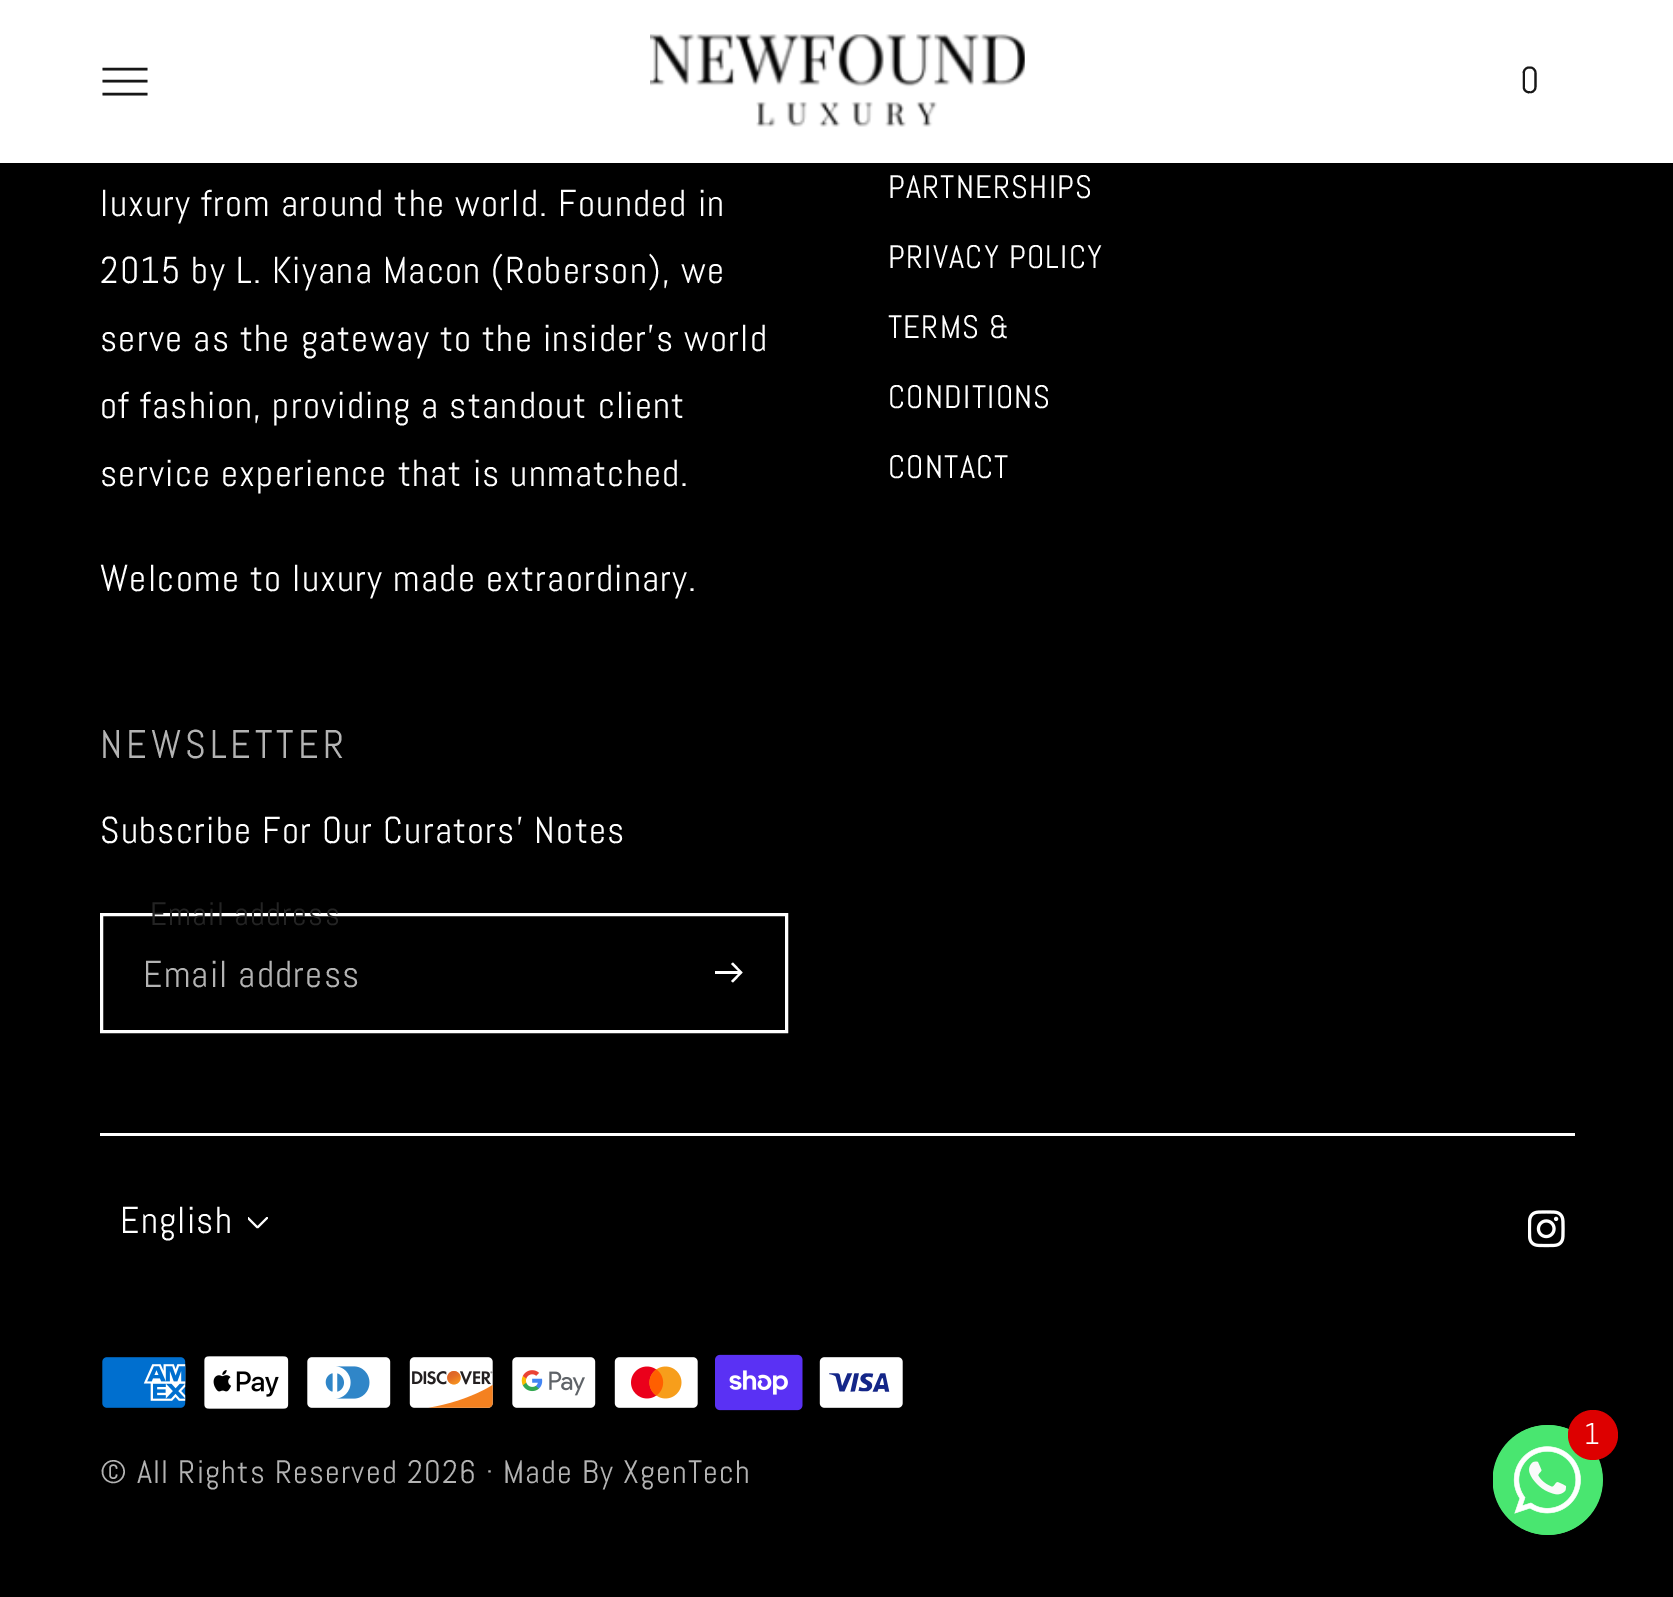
%!PS-Adobe-3.0
%%BoundingBox: 0 0 1673 1597
%%LanguageLevel: 3
%%Pages: 1
%%EndComments
%%BeginProlog
/setink { 3 { 255 div 3 1 roll } repeat setrgbcolor } def
/usefont { [ exch dup neg 0 0 3 -1 roll 0 0 ] selectfont } def
/fillbox { setink rectfill } def
/disc { newpath 0 360 arc closepath } def
/drawimage { 5 dict begin { /h /w /y /x /name } { exch def } forall
  gsave x y translate w h scale
  w h 8 [w 0 0 h 0 0] name (r) file false 3 colorimage grestore end } def
%%EndProlog
%%BeginSetup
<< /PageSize [1673 1597] >> setpagedevice
%%EndSetup
%%Page: 1 1
0 1597 translate 1 -1 scale
4 setmiterlimit
0 0 1673 1597 0 0 0 fillbox
0 0 1673 163 255 255 255 fillbox
23 23 23 setink
2.5 setlinewidth
102.5 69 moveto 147.5 69 lineto 102.5 81 moveto 147.5 81 lineto 102.5 94 moveto 147.5 94 lineto stroke
(assets/img1.rgb) 650 34 375 93 drawimage
/Abel-Regular 37.5 usefont
1520 93 moveto 1.25 0 (0) ashow
255 255 255 setink
100 216 moveto 1.25 0 (luxury from around the world. Founded in) ashow
100 283 moveto 1.25 0 (2015 by L. Kiyana Macon \(Roberson\), we) ashow
100 351 moveto 1.25 0 (serve as the gateway to the insider's world) ashow
100 418 moveto 1.25 0 (of fashion, providing a standout client) ashow
100 486 moveto 1.25 0 (service experience that is unmatched.) ashow
100 591 moveto 1.25 0 (Welcome to luxury made extraordinary.) ashow
/Abel-Regular 32.5 usefont
888 198 moveto 1.25 0 (PARTNERSHIPS) ashow
888 268 moveto 1.25 0 (PRIVACY POLICY) ashow
888 338 moveto 1.25 0 (TERMS &) ashow
888 408 moveto 1.25 0 (CONDITIONS) ashow
888 478 moveto 1.25 0 (CONTACT) ashow
/Abel-Regular 40 usefont
179 179 179 setink
100 758 moveto 4 0 (NEWSLETTER) ashow
/Abel-Regular 37.5 usefont
255 255 255 setink
100 843 moveto 1.25 0 (Subscribe For Our Curators' Notes) ashow
3 setlinewidth
101.5 914.5 685 117 rectstroke
/Abel-Regular 32.5 usefont
36 36 36 setink
150 925 moveto 1.25 0 (Email address) ashow
/Abel-Regular 37.5 usefont
179 179 179 setink
143 987 moveto 1.25 0 (Email address) ashow
255 255 255 setink
733 962.5 moveto 731 964 lineto 738 971 lineto 715 971 lineto 715 974 lineto 738 974 lineto 731 981 lineto 733 982.5 lineto 742.5 972.5 lineto closepath fill
100 1133 1475 3 255 255 255 fillbox
120 1233 moveto 1.25 0 (English) ashow
gsave
248 1213 20 20 rectclip
2 setlinewidth
1 setlinecap
1 setlinejoin
248 1218 moveto 257 1227 lineto 257.5 1227 257.5 1227 258 1227 curveto 267 1218 lineto stroke
grestore
(assets/img2.rgb) 1528 1210 37 38 drawimage
(assets/img3.rgb) 102 1357 84 51 drawimage
(assets/img4.rgb) 204 1356 85 53 drawimage
(assets/img5.rgb) 307 1357 84 51 drawimage
(assets/img6.rgb) 409 1357 84 51 drawimage
(assets/img7.rgb) 512 1357 84 51 drawimage
(assets/img8.rgb) 614 1357 84 51 drawimage
(assets/img9.rgb) 715 1354 88 57 drawimage
(assets/img10.rgb) 819 1357 84 51 drawimage
/Abel-Regular 32.5 usefont
179 179 179 setink
100 1483 moveto 1.25 0 (© All Rights Reserved 2026 · Made By XgenTech) ashow
73 230 112 setink
1548 1480 55 disc fill
(assets/img11.rgb) 1493 1425 110 110 drawimage
221 0 0 setink
1593 1435 25 disc fill
/Abel-Regular 30 usefont
255 255 255 setink
1584 1444 moveto 2 0 (1) ashow
showpage
%%EOF
